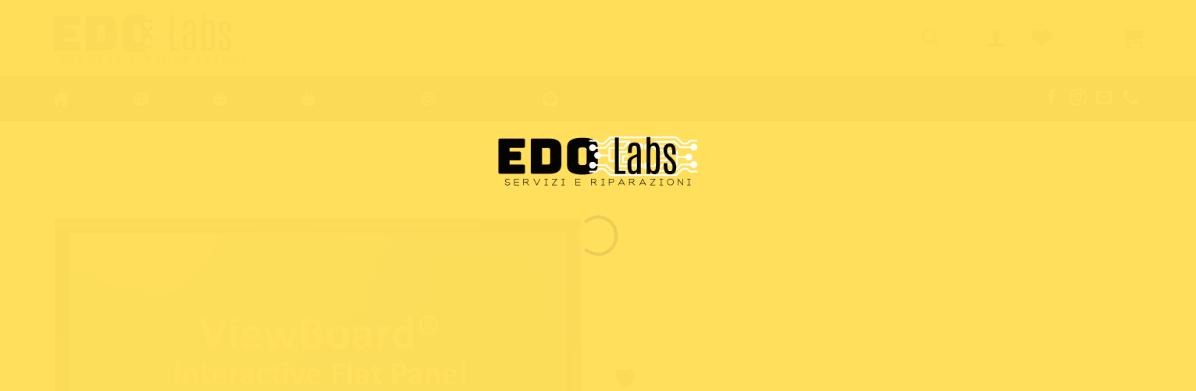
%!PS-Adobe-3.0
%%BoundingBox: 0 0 1196 391
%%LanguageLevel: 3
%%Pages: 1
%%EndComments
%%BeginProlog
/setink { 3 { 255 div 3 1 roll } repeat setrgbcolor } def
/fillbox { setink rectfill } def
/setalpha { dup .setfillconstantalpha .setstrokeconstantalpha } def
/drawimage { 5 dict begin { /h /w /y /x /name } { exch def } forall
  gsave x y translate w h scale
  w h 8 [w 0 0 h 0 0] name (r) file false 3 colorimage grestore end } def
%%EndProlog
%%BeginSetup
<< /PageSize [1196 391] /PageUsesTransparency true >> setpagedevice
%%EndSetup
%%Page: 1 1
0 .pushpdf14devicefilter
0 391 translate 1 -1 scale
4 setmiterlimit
0 0 1196 391 255 223 92 fillbox
0 0 1196 76 255 222 89 fillbox
(assets/img1.rgb) 53 13 200 50 drawimage
(assets/img2.rgb) 922 29 16 16 drawimage
(assets/img3.rgb) 987 30 18 17 drawimage
(assets/img4.rgb) 1032 29 20 18 drawimage
(assets/img5.rgb) 1123 29 20 20 drawimage
0 76 1196 45 250 218 87 fillbox
(assets/img6.rgb) 53 91 16 15 drawimage
(assets/img7.rgb) 134 92 14 13 drawimage
(assets/img8.rgb) 213 92 14 13 drawimage
(assets/img9.rgb) 301 91 16 15 drawimage
(assets/img10.rgb) 384 95 10 6 drawimage
(assets/img11.rgb) 421 91 14 15 drawimage
(assets/img12.rgb) 543 91 14 15 drawimage
(assets/img13.rgb) 1048 88 8 17 drawimage
(assets/img14.rgb) 1070 88 17 17 drawimage
(assets/img15.rgb) 1096 90 17 14 drawimage
(assets/img16.rgb) 1122 89 16 16 drawimage
(assets/img17.rgb) 498 136 200 50 drawimage
0.08 setalpha
0 0 0 setink
3 setlinewidth
585 222.5 moveto 588.5 219 593 217 598 217 curveto 620 217 623.5 249.5 601.5 254 curveto 595.5 255 589.5 253 585 249 curveto stroke
1 setalpha
(assets/img18.rgb) 54 218 528 173 drawimage
0.78 setalpha
255 222 89 setink
585 249 moveto 578 241.5 578 230 585 222.5 curveto stroke
1 setalpha
(assets/img19.rgb) 615 369 21 19 drawimage
.poppdf14devicefilter showpage
%%EOF
